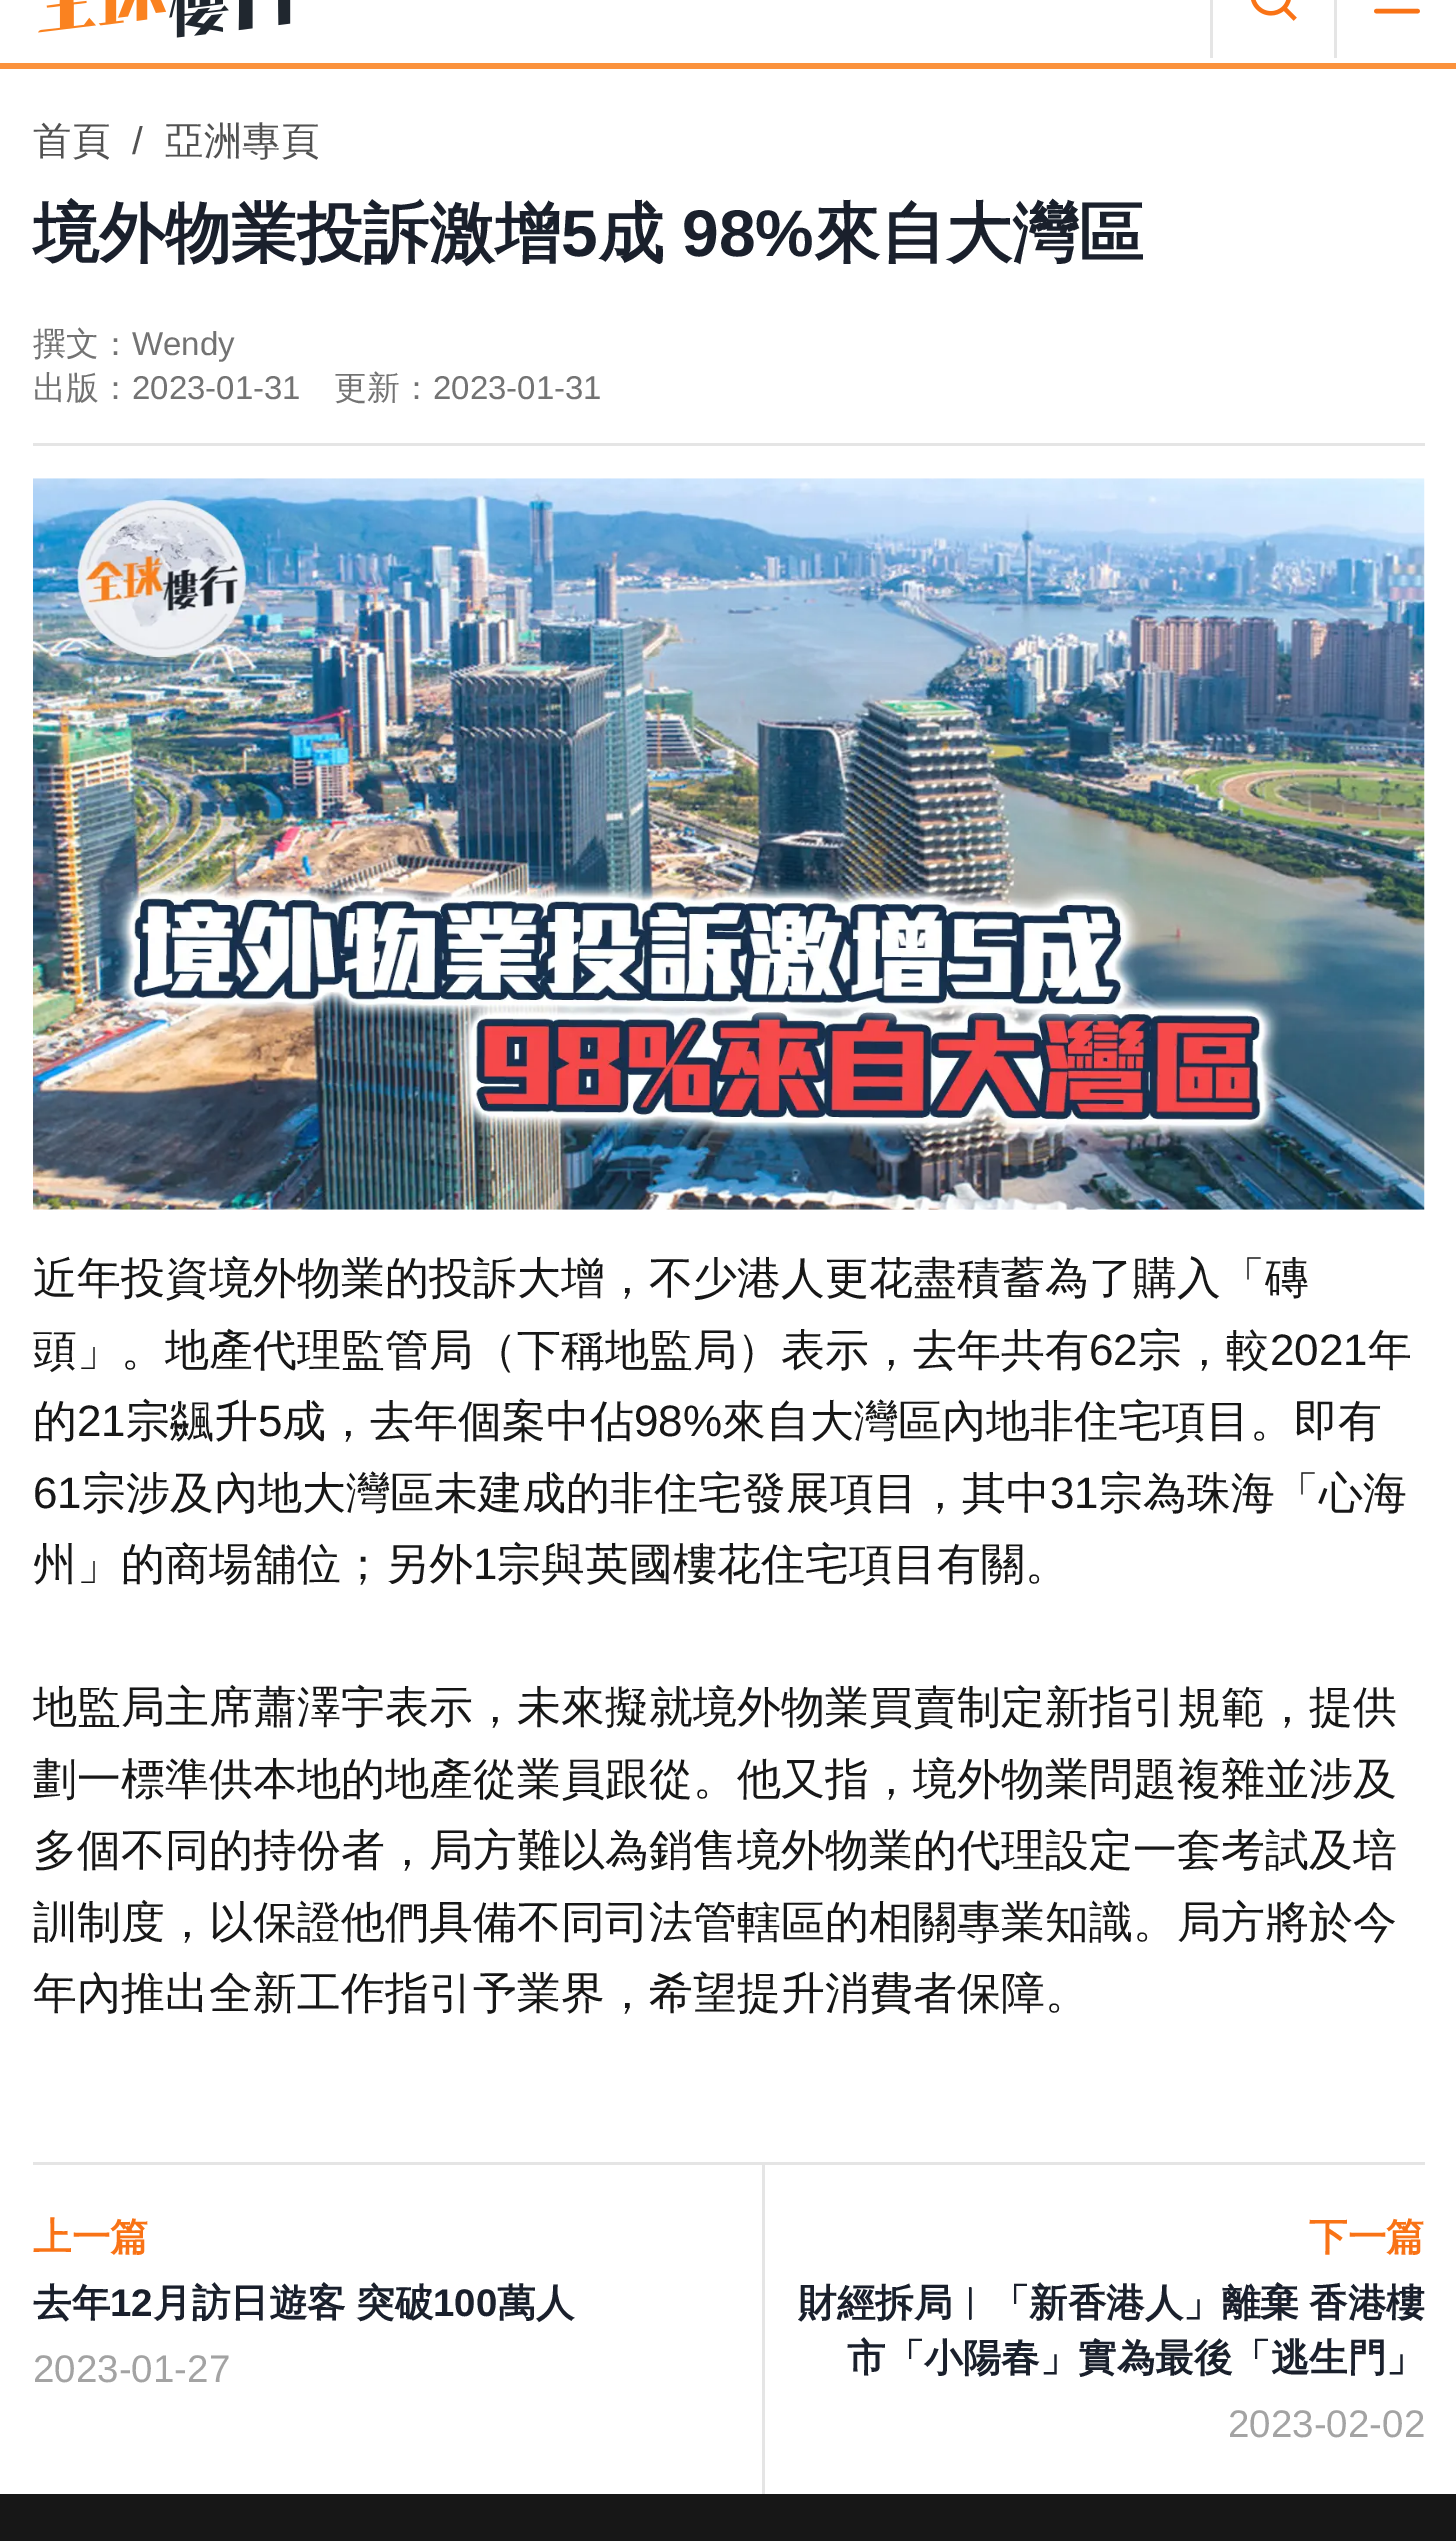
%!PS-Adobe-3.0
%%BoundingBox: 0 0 1456 2541
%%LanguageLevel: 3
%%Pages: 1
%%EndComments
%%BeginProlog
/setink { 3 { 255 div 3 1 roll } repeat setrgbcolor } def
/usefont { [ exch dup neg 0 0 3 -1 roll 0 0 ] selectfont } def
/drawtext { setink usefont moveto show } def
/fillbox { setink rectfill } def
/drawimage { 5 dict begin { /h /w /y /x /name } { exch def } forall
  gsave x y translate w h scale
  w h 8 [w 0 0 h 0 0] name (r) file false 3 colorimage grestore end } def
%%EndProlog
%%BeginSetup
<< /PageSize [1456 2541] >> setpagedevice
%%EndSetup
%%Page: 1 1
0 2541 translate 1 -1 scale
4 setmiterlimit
0 0 1456 2541 255 255 255 fillbox
0 63 1456 6 251 146 60 fillbox
(assets/img1.rgb) 38 0 253 38 drawimage
1210 0 3 58 229 229 229 fillbox
(assets/img2.rgb) 1251 0 46 21 drawimage
1334 0 3 58 229 229 229 fillbox
249 115 22 setink
4.6 setlinewidth
1 setlinecap
1 setlinejoin
1376.5 11 moveto 1417.5 11 lineto stroke
33 443 1392 3 229 229 229 fillbox
(首頁) 33 154 /WenQuanYiZenHei-Medium 38.5 82 82 82 drawtext
(/) 132 154 /LiberationSans-Regular 38.5 82 82 82 drawtext
(亞洲專頁) 165 154 /WenQuanYiZenHei-Medium 38.5 82 82 82 drawtext
(境外物業投訴激增) 33 256 /WenQuanYiZenHei-Bold 66 26 32 44 drawtext
(5) 561 256 /LiberationSans-Bold 66 26 32 44 drawtext
(成) 598 256 /WenQuanYiZenHei-Bold 66 26 32 44 drawtext
(98%) 682 256 /LiberationSans-Bold 66 26 32 44 drawtext
(來自大灣區) 814 256 /WenQuanYiZenHei-Bold 66 26 32 44 drawtext
(撰文：) 33 355 /WenQuanYiZenHei-Medium 33 115 115 115 drawtext
(Wendy) 132 355 /LiberationSans-Regular 33 115 115 115 drawtext
(出版：) 33 399 /WenQuanYiZenHei-Medium 33 115 115 115 drawtext
(2023-01-31) 132 399 /LiberationSans-Regular 33 115 115 115 drawtext
(更新：) 334 399 /WenQuanYiZenHei-Medium 33 115 115 115 drawtext
(2023-01-31) 433 399 /LiberationSans-Regular 33 115 115 115 drawtext
(assets/img3.rgb) 33 478 1392 732 drawimage
(近年投資境外物業的投訴大增，不少港人更花盡積蓄為了購入「磚) 33 1293 /WenQuanYiZenHei-Medium 44 23 23 23 drawtext
(頭」。地產代理監管局（下稱地監局）表示，去年共有) 33 1365 /WenQuanYiZenHei-Medium 44 23 23 23 drawtext
(62) 1089 1365 /LiberationSans-Regular 44 23 23 23 drawtext
(宗，較) 1138 1365 /WenQuanYiZenHei-Medium 44 23 23 23 drawtext
(2021) 1270 1365 /LiberationSans-Regular 44 23 23 23 drawtext
(年) 1368 1365 /WenQuanYiZenHei-Medium 44 23 23 23 drawtext
(的) 33 1436 /WenQuanYiZenHei-Medium 44 23 23 23 drawtext
(21) 77 1436 /LiberationSans-Regular 44 23 23 23 drawtext
(宗飊升) 126 1436 /WenQuanYiZenHei-Medium 44 23 23 23 drawtext
(5) 258 1436 /LiberationSans-Regular 44 23 23 23 drawtext
(成，去年個案中佔) 282 1436 /WenQuanYiZenHei-Medium 44 23 23 23 drawtext
(98%) 634 1436 /LiberationSans-Regular 44 23 23 23 drawtext
(來自大灣區內地非住宅項目。即有) 722 1436 /WenQuanYiZenHei-Medium 44 23 23 23 drawtext
(61) 33 1508 /LiberationSans-Regular 44 23 23 23 drawtext
(宗涉及內地大灣區未建成的非住宅發展項目，其中) 82 1508 /WenQuanYiZenHei-Medium 44 23 23 23 drawtext
(31) 1050 1508 /LiberationSans-Regular 44 23 23 23 drawtext
(宗為珠海「心海) 1099 1508 /WenQuanYiZenHei-Medium 44 23 23 23 drawtext
(州」的商場舖位；另外) 33 1579 /WenQuanYiZenHei-Medium 44 23 23 23 drawtext
(1) 473 1579 /LiberationSans-Regular 44 23 23 23 drawtext
(宗與英國樓花住宅項目有關。) 497 1579 /WenQuanYiZenHei-Medium 44 23 23 23 drawtext
(地監局主席蕭澤宇表示，未來擬就境外物業買賣制定新指引規範，提供) 33 1722 /WenQuanYiZenHei-Medium 44 23 23 23 drawtext
(劃一標準供本地的地產從業員跟從。他又指，境外物業問題複雜並涉及) 33 1794 /WenQuanYiZenHei-Medium 44 23 23 23 drawtext
(多個不同的持份者，局方難以為銷售境外物業的代理設定一套考試及培) 33 1865 /WenQuanYiZenHei-Medium 44 23 23 23 drawtext
(訓制度，以保證他們具備不同司法管轄區的相關專業知識。局方將於今) 33 1937 /WenQuanYiZenHei-Medium 44 23 23 23 drawtext
(年內推出全新工作指引予業界，希望提升消費者保障。) 33 2008 /WenQuanYiZenHei-Medium 44 23 23 23 drawtext
33 2162 1392 3 229 229 229 fillbox
(上一篇) 33 2250 /WenQuanYiZenHei-Bold 38.5 249 115 22 drawtext
(去年) 33 2316 /WenQuanYiZenHei-Bold 38.5 26 32 44 drawtext
(12) 110 2316 /LiberationSans-Bold 38.5 26 32 44 drawtext
/WenQuanYiZenHei-Bold 38.5 usefont
153 2316 moveto -1 0 32 (月訪日遊客 突破) widthshow
(100) 433 2316 /LiberationSans-Bold 38.5 26 32 44 drawtext
(萬人) 497 2316 /WenQuanYiZenHei-Bold 38.5 26 32 44 drawtext
(2023-01-27) 33 2382 /LiberationSans-Regular 38.5 163 163 163 drawtext
762 2164 3 330 229 229 229 fillbox
(下一篇) 1309 2250 /WenQuanYiZenHei-Bold 38.5 249 115 22 drawtext
26 32 44 setink
798 2316 moveto -1 0 32 (財經拆局︳「新香港人」離棄 香港樓) widthshow
(市「小陽春」實為最後「逃生門」) 847 2371 /WenQuanYiZenHei-Bold 38.5 26 32 44 drawtext
(2023-02-02) 1228 2437 /LiberationSans-Regular 38.5 163 163 163 drawtext
0 2494 1456 47 23 23 23 fillbox
showpage
%%EOF
